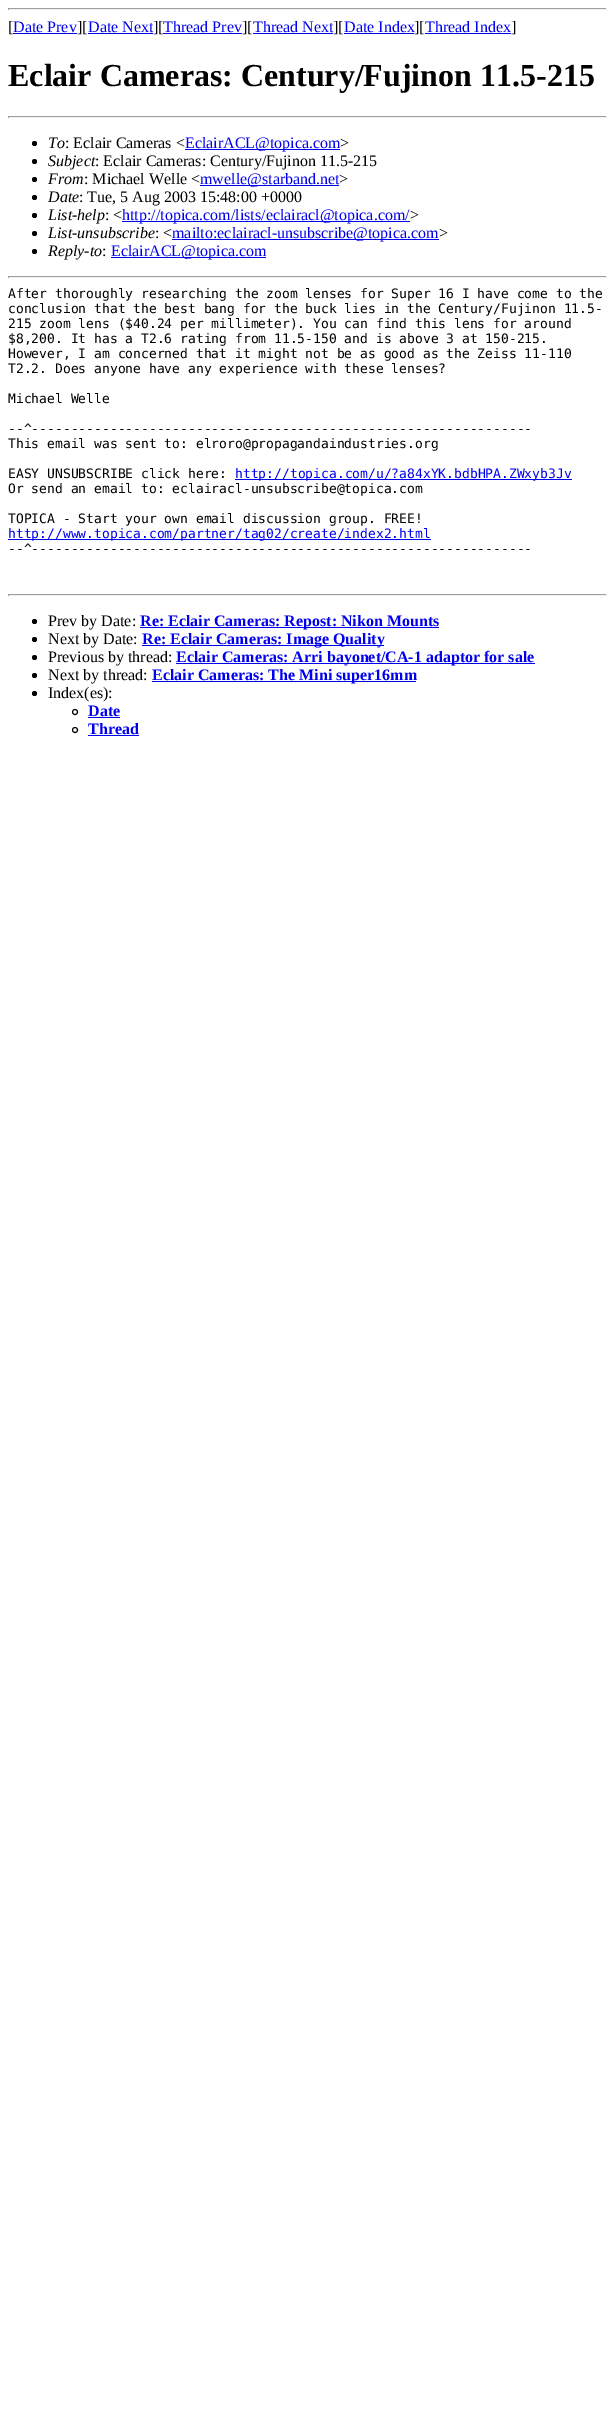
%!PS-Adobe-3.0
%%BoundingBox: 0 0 615 2433
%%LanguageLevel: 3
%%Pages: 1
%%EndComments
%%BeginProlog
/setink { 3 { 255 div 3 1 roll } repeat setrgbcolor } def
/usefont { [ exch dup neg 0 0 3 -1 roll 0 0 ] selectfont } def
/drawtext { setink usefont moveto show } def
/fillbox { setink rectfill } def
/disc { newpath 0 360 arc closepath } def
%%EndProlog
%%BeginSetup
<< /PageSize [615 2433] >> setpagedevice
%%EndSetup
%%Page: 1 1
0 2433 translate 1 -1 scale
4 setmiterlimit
0 0 615 2433 255 255 255 fillbox
8 8 599 1 159 159 159 fillbox
606 8 1 2 238 238 238 fillbox
8 9 599 1 238 238 238 fillbox
8 8 1 2 159 159 159 fillbox
([) 8 32 /LiberationSerif-Regular 16 0 0 0 drawtext
(Date Prev) 13 32 /LiberationSerif-Regular 16 0 0 238 drawtext
13 33 64 1 0 0 238 fillbox
(][) 77 32 /LiberationSerif-Regular 16 0 0 0 drawtext
(Date Next) 88 32 /LiberationSerif-Regular 16 0 0 238 drawtext
88 33 65 1 0 0 238 fillbox
(][) 153 32 /LiberationSerif-Regular 16 0 0 0 drawtext
(Thread Prev) 163 32 /LiberationSerif-Regular 16 0 0 238 drawtext
163 33 79 1 0 0 238 fillbox
(][) 242 32 /LiberationSerif-Regular 16 0 0 0 drawtext
(Thread Next) 253 32 /LiberationSerif-Regular 16 0 0 238 drawtext
253 33 80 1 0 0 238 fillbox
(][) 333 32 /LiberationSerif-Regular 16 0 0 0 drawtext
(Date Index) 344 32 /LiberationSerif-Regular 16 0 0 238 drawtext
344 33 70 1 0 0 238 fillbox
(][) 414 32 /LiberationSerif-Regular 16 0 0 0 drawtext
(Thread Index) 425 32 /LiberationSerif-Regular 16 0 0 238 drawtext
425 33 86 1 0 0 238 fillbox
(]) 511 32 /LiberationSerif-Regular 16 0 0 0 drawtext
(Eclair Cameras: Century/Fujinon 11.5-215) 8 86 /LiberationSerif-Bold 32 0 0 0 drawtext
8 116 599 1 159 159 159 fillbox
606 116 1 2 238 238 238 fillbox
8 117 599 1 238 238 238 fillbox
8 116 1 2 159 159 159 fillbox
0 0 0 setink
34.5 143.5 2.5 disc fill
(To) 48 148 /LiberationSerif-Italic 16 0 0 0 drawtext
(: Eclair Cameras <) 65 148 /LiberationSerif-Regular 16 0 0 0 drawtext
185 149 155 1 0 0 238 fillbox
(EclairACL@topica.com) 185 148 /LiberationSerif-Regular 16 0 0 238 drawtext
(>) 340 148 /LiberationSerif-Regular 16 0 0 0 drawtext
34.5 161.5 2.5 disc fill
(Subject) 48 166 /LiberationSerif-Italic 16 0 0 0 drawtext
(: Eclair Cameras: Century/Fujinon 11.5-215) 95 166 /LiberationSerif-Regular 16 0 0 0 drawtext
34.5 179.5 2.5 disc fill
(From) 48 184 /LiberationSerif-Italic 16 0 0 0 drawtext
(: Michael Welle <) 84 184 /LiberationSerif-Regular 16 0 0 0 drawtext
200 185 139 1 0 0 238 fillbox
(mwelle@starband.net) 200 184 /LiberationSerif-Regular 16 0 0 238 drawtext
(>) 339 184 /LiberationSerif-Regular 16 0 0 0 drawtext
34.5 197.5 2.5 disc fill
(Date) 48 202 /LiberationSerif-Italic 16 0 0 0 drawtext
(: Tue, 5 Aug 2003 15:48:00 +0000) 79 202 /LiberationSerif-Regular 16 0 0 0 drawtext
34.5 215.5 2.5 disc fill
(List-help) 48 220 /LiberationSerif-Italic 16 0 0 0 drawtext
(: <) 105 220 /LiberationSerif-Regular 16 0 0 0 drawtext
122 221 288 1 0 0 238 fillbox
(http://topica.com/lists/eclairacl@topica.com/) 122 220 /LiberationSerif-Regular 16 0 0 238 drawtext
(>) 410 220 /LiberationSerif-Regular 16 0 0 0 drawtext
34.5 233.5 2.5 disc fill
(List-unsubscribe) 48 238 /LiberationSerif-Italic 16 0 0 0 drawtext
(: <) 155 238 /LiberationSerif-Regular 16 0 0 0 drawtext
172 239 267 1 0 0 238 fillbox
(mailto:eclairacl-unsubscribe@topica.com) 172 238 /LiberationSerif-Regular 16 0 0 238 drawtext
(>) 439 238 /LiberationSerif-Regular 16 0 0 0 drawtext
34.5 251.5 2.5 disc fill
(Reply-to) 48 256 /LiberationSerif-Italic 16 0 0 0 drawtext
(:) 102 256 /LiberationSerif-Regular 16 0 0 0 drawtext
111 257 155 1 0 0 238 fillbox
(EclairACL@topica.com) 111 256 /LiberationSerif-Regular 16 0 0 238 drawtext
8 276 599 1 159 159 159 fillbox
606 276 1 2 238 238 238 fillbox
8 277 599 1 238 238 238 fillbox
8 276 1 2 159 159 159 fillbox
(After thoroughly researching the zoom lenses for Super 16 I have come to the) 8 298 /DejaVuSansMono-Regular 13 0 0 0 drawtext
(conclusion that the best bang for the buck lies in the Century/Fujinon 11.5-) 8 313 /DejaVuSansMono-Regular 13 0 0 0 drawtext
(215 zoom lens \($40.24 per millimeter\). You can find this lens for around) 8 328 /DejaVuSansMono-Regular 13 0 0 0 drawtext
($8,200. It has a T2.6 rating from 11.5-150 and is above 3 at 150-215.) 8 343 /DejaVuSansMono-Regular 13 0 0 0 drawtext
(However, I am concerned that it might not be as good as the Zeiss 11-110) 8 358 /DejaVuSansMono-Regular 13 0 0 0 drawtext
(T2.2. Does anyone have any experience with these lenses?) 8 373 /DejaVuSansMono-Regular 13 0 0 0 drawtext
(Michael Welle) 8 403 /DejaVuSansMono-Regular 13 0 0 0 drawtext
(--^----------------------------------------------------------------) 8 433 /DejaVuSansMono-Regular 13 0 0 0 drawtext
(This email was sent to: elroro@propagandaindustries.org) 8 448 /DejaVuSansMono-Regular 13 0 0 0 drawtext
(EASY UNSUBSCRIBE click here:) 8 478 /DejaVuSansMono-Regular 13 0 0 0 drawtext
235 479 337 1 0 0 238 fillbox
(http://topica.com/u/?a84xYK.bdbHPA.ZWxyb3Jv) 235 478 /DejaVuSansMono-Regular 13 0 0 238 drawtext
(Or send an email to: eclairacl-unsubscribe@topica.com) 8 493 /DejaVuSansMono-Regular 13 0 0 0 drawtext
(TOPICA - Start your own email discussion group. FREE!) 8 523 /DejaVuSansMono-Regular 13 0 0 0 drawtext
8 539 423 1 0 0 238 fillbox
(http://www.topica.com/partner/tag02/create/index2.html) 8 538 /DejaVuSansMono-Regular 13 0 0 238 drawtext
(--^----------------------------------------------------------------) 8 553 /DejaVuSansMono-Regular 13 0 0 0 drawtext
8 594 599 1 159 159 159 fillbox
606 594 1 2 238 238 238 fillbox
8 595 599 1 238 238 238 fillbox
8 594 1 2 159 159 159 fillbox
0 0 0 setink
34.5 621.5 2.5 disc fill
(Prev by Date:) 48 626 /LiberationSerif-Regular 16 0 0 0 drawtext
140 627 299 1 0 0 238 fillbox
(Re: Eclair Cameras: Repost: Nikon Mounts) 140 626 /LiberationSerif-Bold 16 0 0 238 drawtext
0 0 0 setink
34.5 639.5 2.5 disc fill
(Next by Date:) 48 644 /LiberationSerif-Regular 16 0 0 0 drawtext
142 645 242 1 0 0 238 fillbox
(Re: Eclair Cameras: Image Quality) 142 644 /LiberationSerif-Bold 16 0 0 238 drawtext
0 0 0 setink
34.5 657.5 2.5 disc fill
(Previous by thread:) 48 662 /LiberationSerif-Regular 16 0 0 0 drawtext
176 663 359 1 0 0 238 fillbox
(Eclair Cameras: Arri bayonet/CA-1 adaptor for sale) 176 662 /LiberationSerif-Bold 16 0 0 238 drawtext
0 0 0 setink
34.5 675.5 2.5 disc fill
(Next by thread:) 48 680 /LiberationSerif-Regular 16 0 0 0 drawtext
152 681 264 1 0 0 238 fillbox
(Eclair Cameras: The Mini super16mm) 152 680 /LiberationSerif-Bold 16 0 0 238 drawtext
0 0 0 setink
34.5 693.5 2.5 disc fill
(Index\(es\):) 48 698 /LiberationSerif-Regular 16 0 0 0 drawtext
75 712 2.5 disc stroke
(Date) 88 716 /LiberationSerif-Bold 16 0 0 238 drawtext
88 717 32 1 0 0 238 fillbox
0 0 0 setink
75 730 2.5 disc stroke
(Thread) 88 734 /LiberationSerif-Bold 16 0 0 238 drawtext
88 735 51 1 0 0 238 fillbox
showpage
%%EOF
